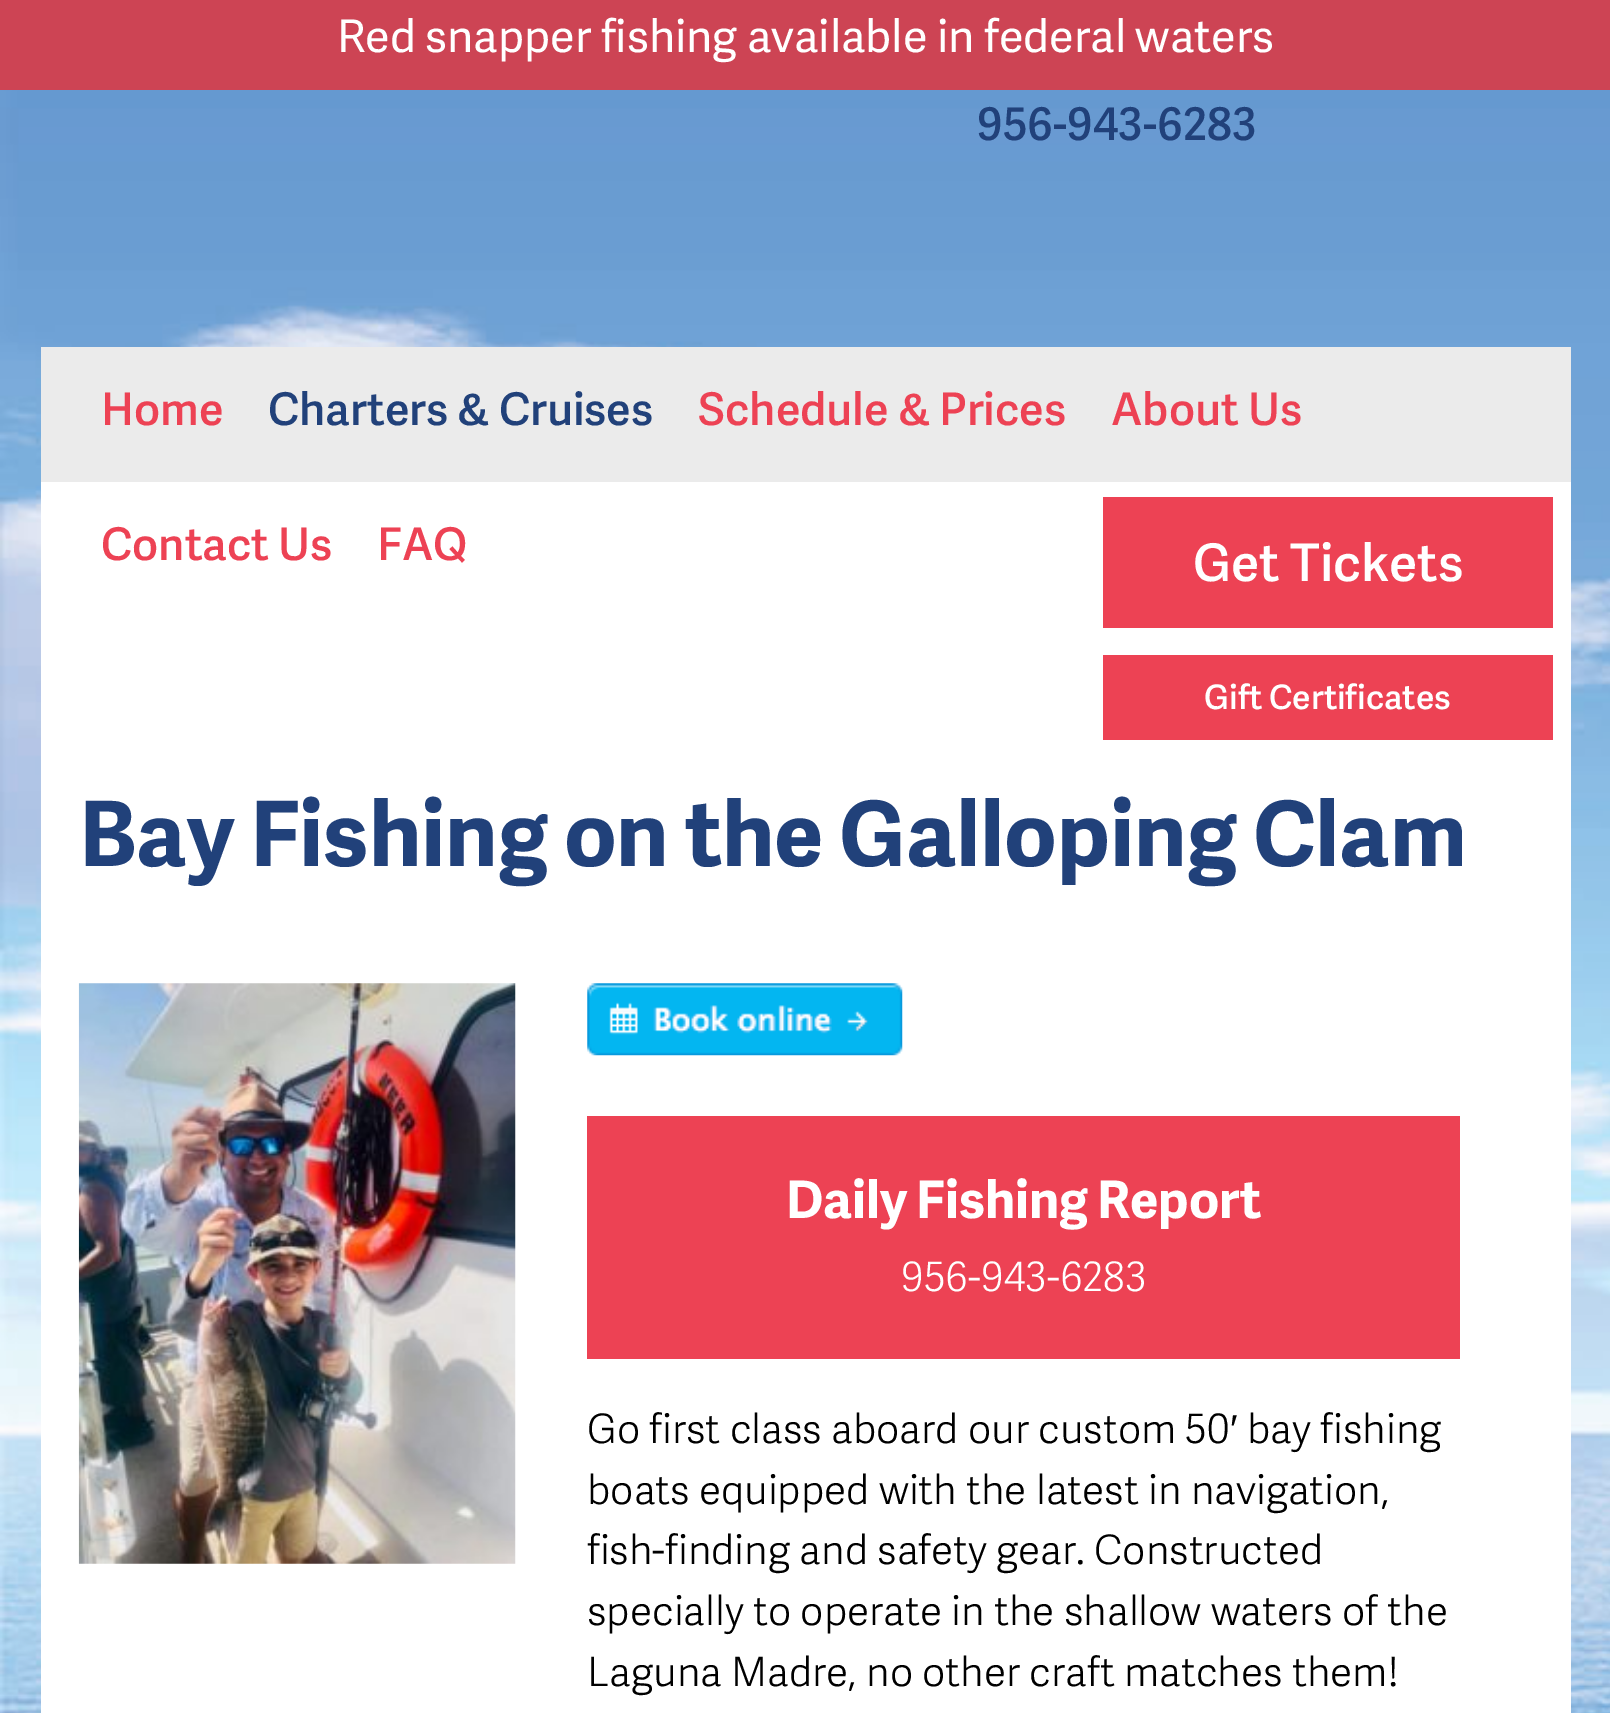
%!PS-Adobe-3.0
%%BoundingBox: 0 0 1610 1713
%%LanguageLevel: 3
%%Pages: 1
%%EndComments
%%BeginProlog
/setink { 3 { 255 div 3 1 roll } repeat setrgbcolor } def
/usefont { [ exch dup neg 0 0 3 -1 roll 0 0 ] selectfont } def
/drawtext { setink usefont moveto show } def
/fillbox { setink rectfill } def
/drawimage { 5 dict begin { /h /w /y /x /name } { exch def } forall
  gsave x y translate w h scale
  w h 8 [w 0 0 h 0 0] name (r) file false 3 colorimage grestore end } def
%%EndProlog
%%BeginSetup
<< /PageSize [1610 1713] >> setpagedevice
%%EndSetup
%%Page: 1 1
0 1713 translate 1 -1 scale
4 setmiterlimit
0 0 1610 1713 255 255 255 fillbox
(assets/img1.rgb) 0 90 1610 1623 drawimage
0 0 1610 90 205 68 84 fillbox
(Red snapper fishing available in federal waters) 337 52 /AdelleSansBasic-Regular 45 255 255 255 drawtext
(956-943-6283) 977 140 /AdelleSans-SemiBold 45 33 65 122 drawtext
41 482 1530 1231 255 255 255 fillbox
41 347 1530 135 235 235 235 fillbox
(Home) 101 425 /AdelleSans-SemiBold 45 237 66 84 drawtext
(Charters & Cruises) 268 425 /AdelleSans-SemiBold 45 33 65 122 drawtext
(Schedule & Prices) 698 425 /AdelleSans-SemiBold 45 237 66 84 drawtext
(About Us) 1111 425 /AdelleSans-SemiBold 45 237 66 84 drawtext
(Contact Us) 101 560 /AdelleSans-SemiBold 45 237 66 84 drawtext
(FAQ) 377 560 /AdelleSans-SemiBold 45 237 66 84 drawtext
1103 497 450 131 237 66 84 fillbox
(Get Tickets) 1193 581 /AdelleSans-SemiBold 51.75 255 255 255 drawtext
1103 655 450 85 237 66 84 fillbox
(Gift Certificates) 1204 709 /AdelleSans-SemiBold 33.75 255 255 255 drawtext
(Bay Fishing on the Galloping Clam) 79 866 /AdelleSansBasic-Bold 90 33 65 122 drawtext
(assets/img2.rgb) 78 983 438 581 drawimage
(assets/img3.rgb) 587 983 316 73 drawimage
587 1116 873 243 237 66 84 fillbox
(Daily Fishing Report) 786 1218 /AdelleSansBasic-Bold 51.75 255 255 255 drawtext
(956-943-6283) 901 1291 /AdelleSans-Light 40.5 255 255 255 drawtext
(Go first class aboard our custom 50) 587 1443 /AdelleSans-Light 40.5 0 0 0 drawtext
(′) 1230 1443 /LiberationSans-Regular 40.5 0 0 0 drawtext
(bay fishing) 1247 1443 /AdelleSans-Light 40.5 0 0 0 drawtext
(boats equipped with the latest in navigation,) 587 1504 /AdelleSans-Light 40.5 0 0 0 drawtext
(fish-finding and safety gear. Constructed) 587 1564 /AdelleSans-Light 40.5 0 0 0 drawtext
(specially to operate in the shallow waters of the) 587 1625 /AdelleSans-Light 40.5 0 0 0 drawtext
(Laguna Madre, no other craft matches them!) 587 1686 /AdelleSans-Light 40.5 0 0 0 drawtext
showpage
%%EOF
